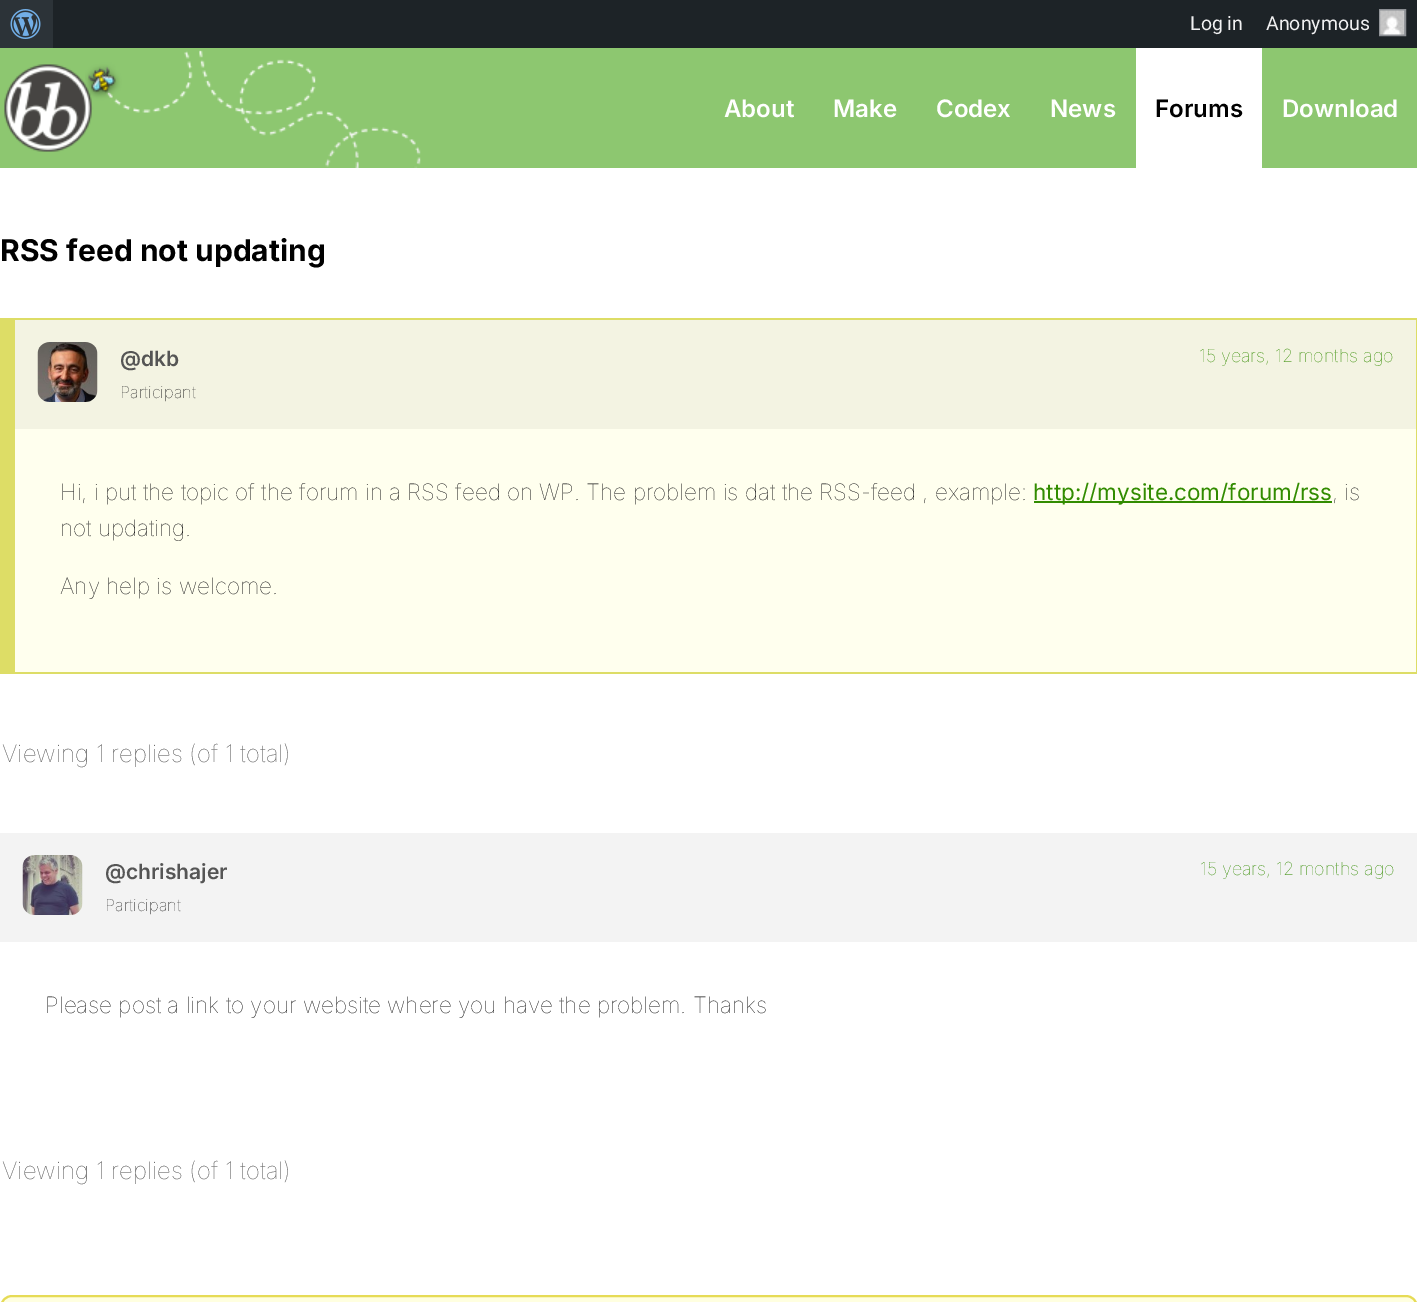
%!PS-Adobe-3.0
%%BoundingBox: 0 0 1417 1302
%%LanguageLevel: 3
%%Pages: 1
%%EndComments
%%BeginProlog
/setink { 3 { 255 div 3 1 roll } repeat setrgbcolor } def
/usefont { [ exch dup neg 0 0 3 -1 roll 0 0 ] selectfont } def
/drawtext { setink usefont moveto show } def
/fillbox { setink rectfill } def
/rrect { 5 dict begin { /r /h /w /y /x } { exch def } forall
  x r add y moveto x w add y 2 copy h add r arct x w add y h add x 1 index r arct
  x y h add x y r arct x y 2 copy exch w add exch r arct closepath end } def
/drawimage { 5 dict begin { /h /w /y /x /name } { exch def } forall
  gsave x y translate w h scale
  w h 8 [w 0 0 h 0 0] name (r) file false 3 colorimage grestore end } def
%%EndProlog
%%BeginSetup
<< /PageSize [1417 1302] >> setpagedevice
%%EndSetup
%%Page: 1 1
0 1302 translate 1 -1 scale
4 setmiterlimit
0 0 1417 1302 255 255 255 fillbox
53 0 1364 48 29 35 39 fillbox
0 0 53 48 44 51 56 fillbox
(assets/img1.rgb) 10 9 31 30 drawimage
(Log in) 1190 30 /Roboto-Regular 19.5 240 240 241 drawtext
140 143 148 setink
2 setlinewidth
1380 10 25 25 rectstroke
(Anonymous) 1266 30 /Roboto-Regular 19.5 240 240 241 drawtext
(assets/img2.rgb) 1379 10 26 25 drawimage
0 48 1417 120 141 199 112 fillbox
(assets/img3.rgb) 85 50 336 118 drawimage
(assets/img4.rgb) 4 64 94 88 drawimage
(About) 724 117 /Inter-SemiBold 24 255 255 255 drawtext
(Make) 833 117 /Inter-SemiBold 24 255 255 255 drawtext
(Codex) 936 117 /Inter-SemiBold 24 255 255 255 drawtext
(News) 1050 117 /Inter-SemiBold 24 255 255 255 drawtext
1136 48 126 120 255 255 255 fillbox
(Forums) 1155 117 /Inter-SemiBold 24 0 0 0 drawtext
(Download) 1282 117 /Inter-SemiBold 24 255 255 255 drawtext
(RSS feed not updating) 0 261 /Inter-Bold 30 0 0 0 drawtext
15 318 1402 2 221 221 102 fillbox
1416 318 1 356 221 221 102 fillbox
15 672 1402 2 221 221 102 fillbox
0 318 15 356 221 221 102 fillbox
15 429 1401 243 255 255 238 fillbox
15 320 1401 109 243 243 226 fillbox
(assets/img5.rgb) 37 342 61 60 drawimage
(@dkb) 120 366 /Inter-SemiBold 21 85 85 85 drawtext
(Participant) 120 398 /Inter-Thin 16.5 34 34 34 drawtext
(15 years, 12 months ago) 1199 362 /Inter-Thin 18 50 140 0 drawtext
(Hi, i put the topic of the forum in a RSS feed on WP. The problem is dat the RSS-feed , example:) 60 500 /Inter-Thin 22.5 34 34 34 drawtext
1034 501 298 2 50 140 0 fillbox
(http://mysite.com/forum/rss) 1033 500 /Inter-Regular 22.5 50 140 0 drawtext
(, is) 1332 500 /Inter-Thin 22.5 34 34 34 drawtext
(not updating.) 60 536 /Inter-Thin 22.5 34 34 34 drawtext
(Any help is welcome.) 60 594 /Inter-Thin 22.5 34 34 34 drawtext
(Viewing 1 replies \(of 1 total\)) 2 762 /Inter-Thin 24 85 85 85 drawtext
0 833 1417 109 243 243 243 fillbox
(assets/img6.rgb) 22 855 61 60 drawimage
(@chrishajer) 105 879 /Inter-SemiBold 21 85 85 85 drawtext
(Participant) 105 911 /Inter-Thin 16.5 34 34 34 drawtext
(15 years, 12 months ago) 1200 875 /Inter-Thin 18 50 140 0 drawtext
(Please post a link to your website where you have the problem. Thanks) 45 1013 /Inter-Thin 22.5 34 34 34 drawtext
(Viewing 1 replies \(of 1 total\)) 2 1179 /Inter-Thin 24 85 85 85 drawtext
255 255 224 setink
1 1296 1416 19 11 rrect gsave fill grestore
230 219 85 setink
stroke
showpage
%%EOF
